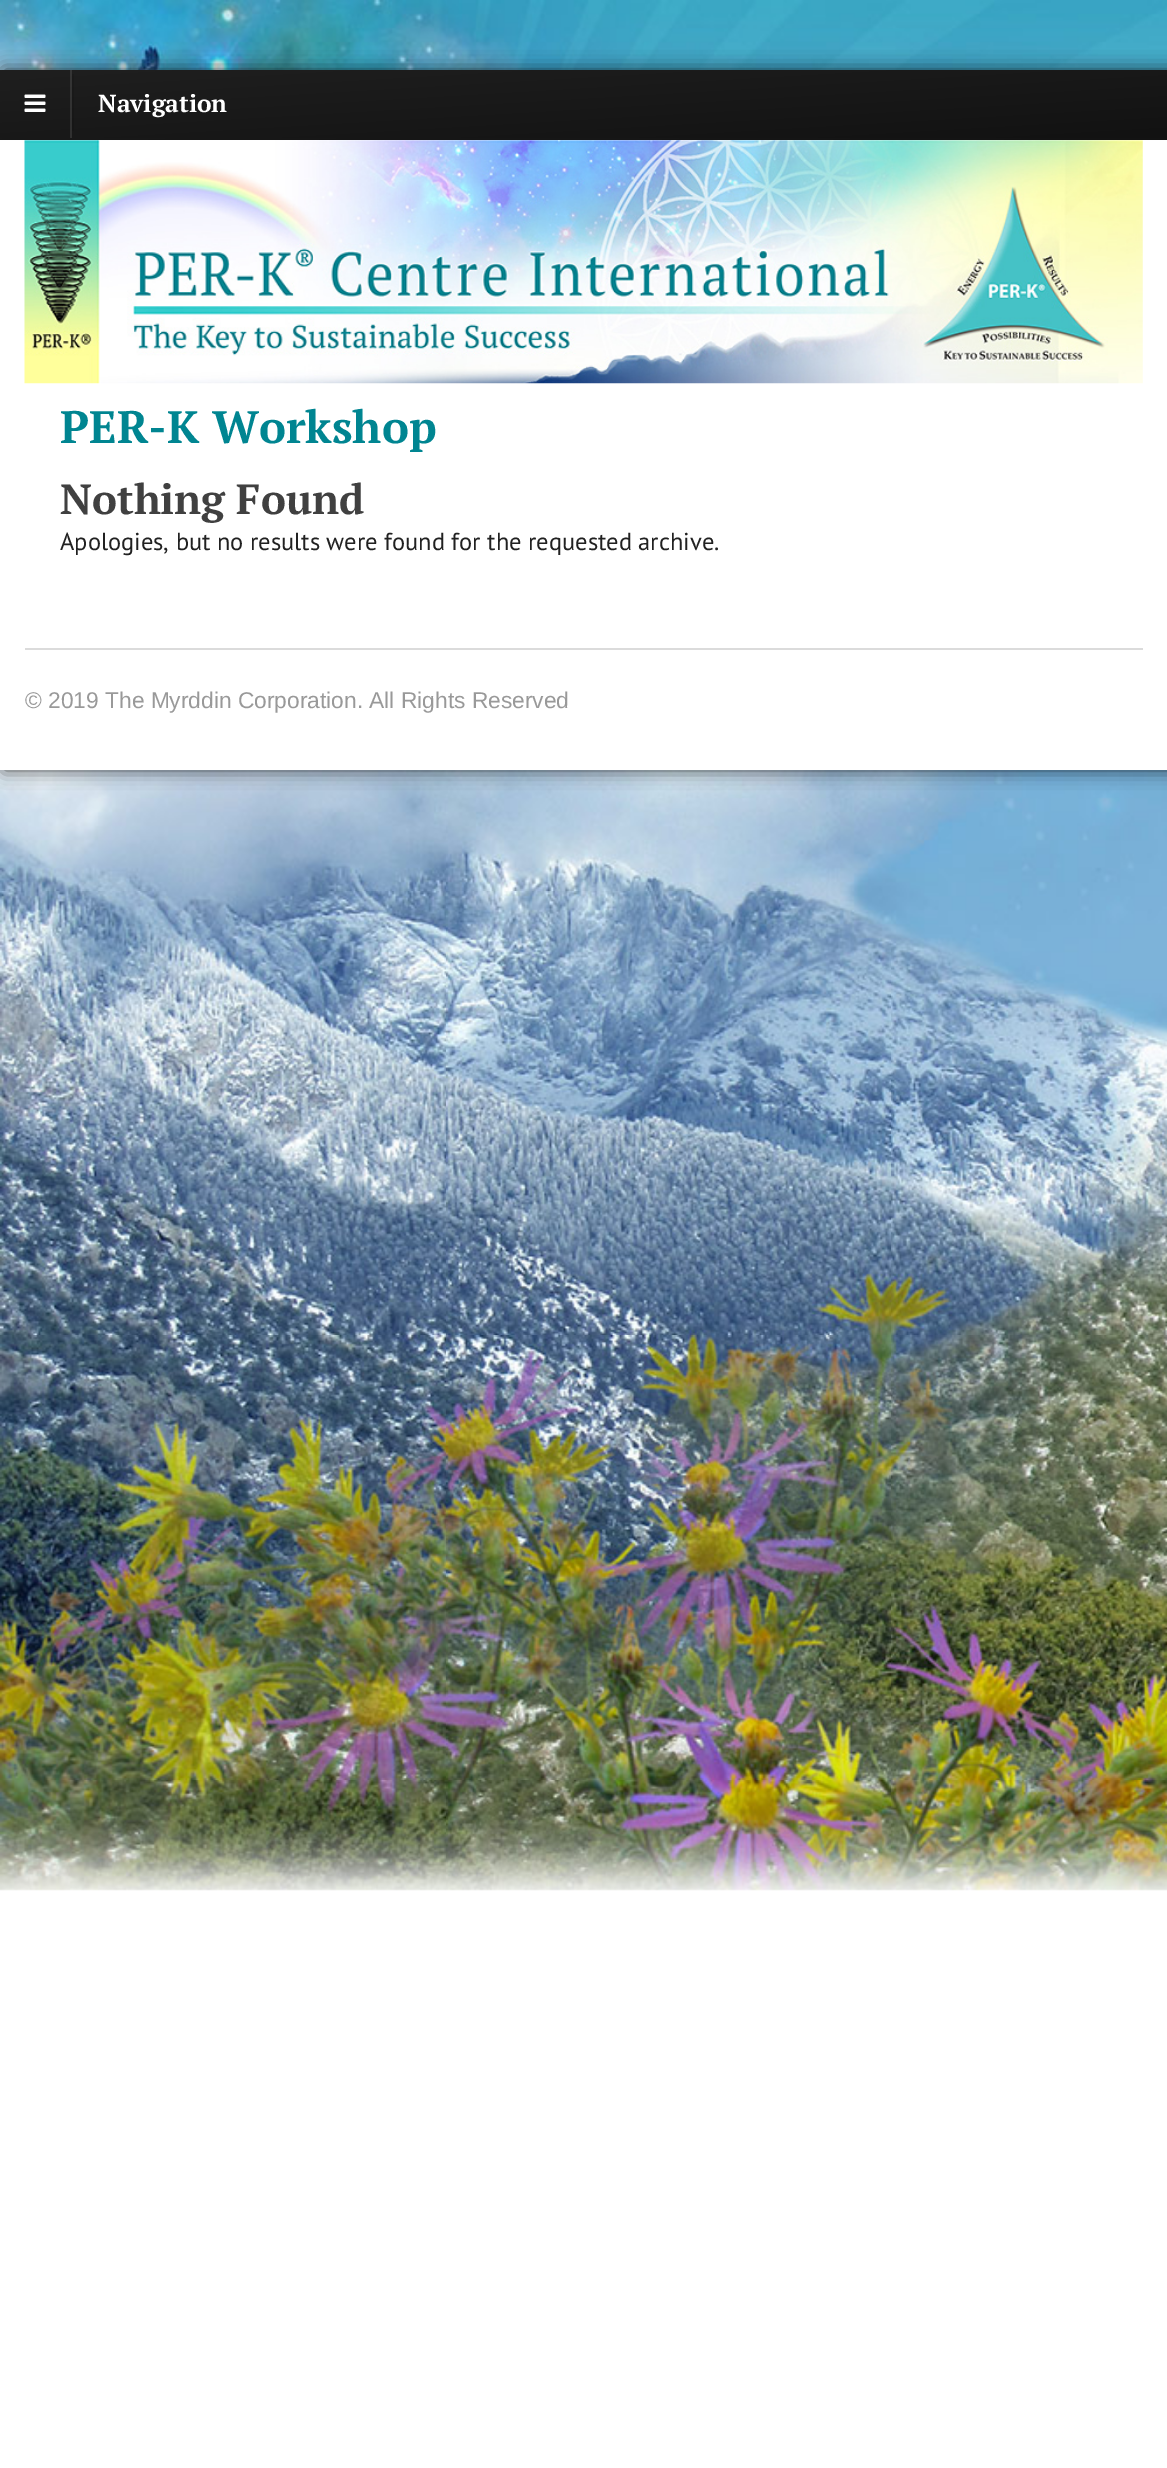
%!PS-Adobe-3.0
%%BoundingBox: 0 0 1167 2468
%%LanguageLevel: 3
%%Pages: 1
%%EndComments
%%BeginProlog
/setink { 3 { 255 div 3 1 roll } repeat setrgbcolor } def
/usefont { [ exch dup neg 0 0 3 -1 roll 0 0 ] selectfont } def
/drawtext { setink usefont moveto show } def
/fillbox { setink rectfill } def
/setalpha { dup .setfillconstantalpha .setstrokeconstantalpha } def
/rrect { 5 dict begin { /r /h /w /y /x } { exch def } forall
  x r add y moveto x w add y 2 copy h add r arct x w add y h add x 1 index r arct
  x y h add x y r arct x y 2 copy exch w add exch r arct closepath end } def
/softshadow { 12 dict begin { /a /b /q /h /w /y /x } { exch def } forall gsave /was 0 def
  9 -2 -9 { dup b mul 4 div /e exch def 1 sub .425 mul 2.718 exch exp 1 add a .99 .min exch div /now exch def
    1 1 now sub 1 was sub div sub setalpha /was now def
    w h .min e 2 mul add 0 gt { x e sub y e sub w e 2 mul add h e 2 mul add
      q e add b .6 mul add w h .min 2 div e add .min 0 .max rrect fill } if } for grestore end } def
/drawimage { 5 dict begin { /h /w /y /x /name } { exch def } forall
  gsave x y translate w h scale
  w h 8 [w 0 0 h 0 0] name (r) file false 3 colorimage grestore end } def
%%EndProlog
%%BeginSetup
<< /PageSize [1167 2468] /PageUsesTransparency true >> setpagedevice
%%EndSetup
%%Page: 1 1
0 .pushpdf14devicefilter
0 2468 translate 1 -1 scale
4 setmiterlimit
0 0 1167 2468 255 255 255 fillbox
(assets/img1.rgb) 0 0 1167 1891 drawimage
0 0 0 setink
4 70 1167 700 0 9 0.7 softshadow
0 140 1167 630 255 255 255 fillbox
gsave 0 70 moveto 1167 70 lineto 1167 138 lineto 0 138 lineto closepath clip newpath
<< /ShadingType 2 /ColorSpace /DeviceRGB /Coords [580 36 588 172] /Extend [true true] /Function << /FunctionType 2 /Domain [0 1] /C0 [0.122 0.122 0.122] /C1 [0.071 0.071 0.071] /N 1 >> >> shfill grestore
gsave 0 138 moveto 1167 138 lineto 1167 140 lineto 0 140 lineto closepath clip newpath
<< /ShadingType 2 /ColorSpace /DeviceRGB /Coords [580 104 588 240] /Extend [true true] /Function << /FunctionType 2 /Domain [0 1] /C0 [0.122 0.122 0.122] /C1 [0.071 0.071 0.071] /N 1 >> >> shfill grestore
0.2 setalpha
0 138 1167 2 0 0 0 fillbox
0.1 setalpha
70 70 2 68 255 255 255 fillbox
1 setalpha
(assets/img2.rgb) 24 94 22 18 drawimage
(Navigation) 98 112 /PTSerif-Bold 24.5 255 255 255 drawtext
0.1 setalpha
72 74 2 57 0 0 0 fillbox
1 setalpha
(assets/img3.rgb) 24 140 1119 244 drawimage
(PER-K Workshop) 60 443 /PTSerif-Bold 45.5 0 133 145 drawtext
(Nothing Found) 60 514 /PTSerif-Bold 42 64 64 64 drawtext
(Apologies, but no results were found for the requested archive.) 60 550 /PTSans-Regular 24.5 33 33 33 drawtext
25 648 1118 2 219 219 219 fillbox
(© 2019 The Myrddin Corporation. All Rights Reserved) 25 708 /LiberationSans-Regular 22.75 153 153 153 drawtext
.poppdf14devicefilter showpage
%%EOF
